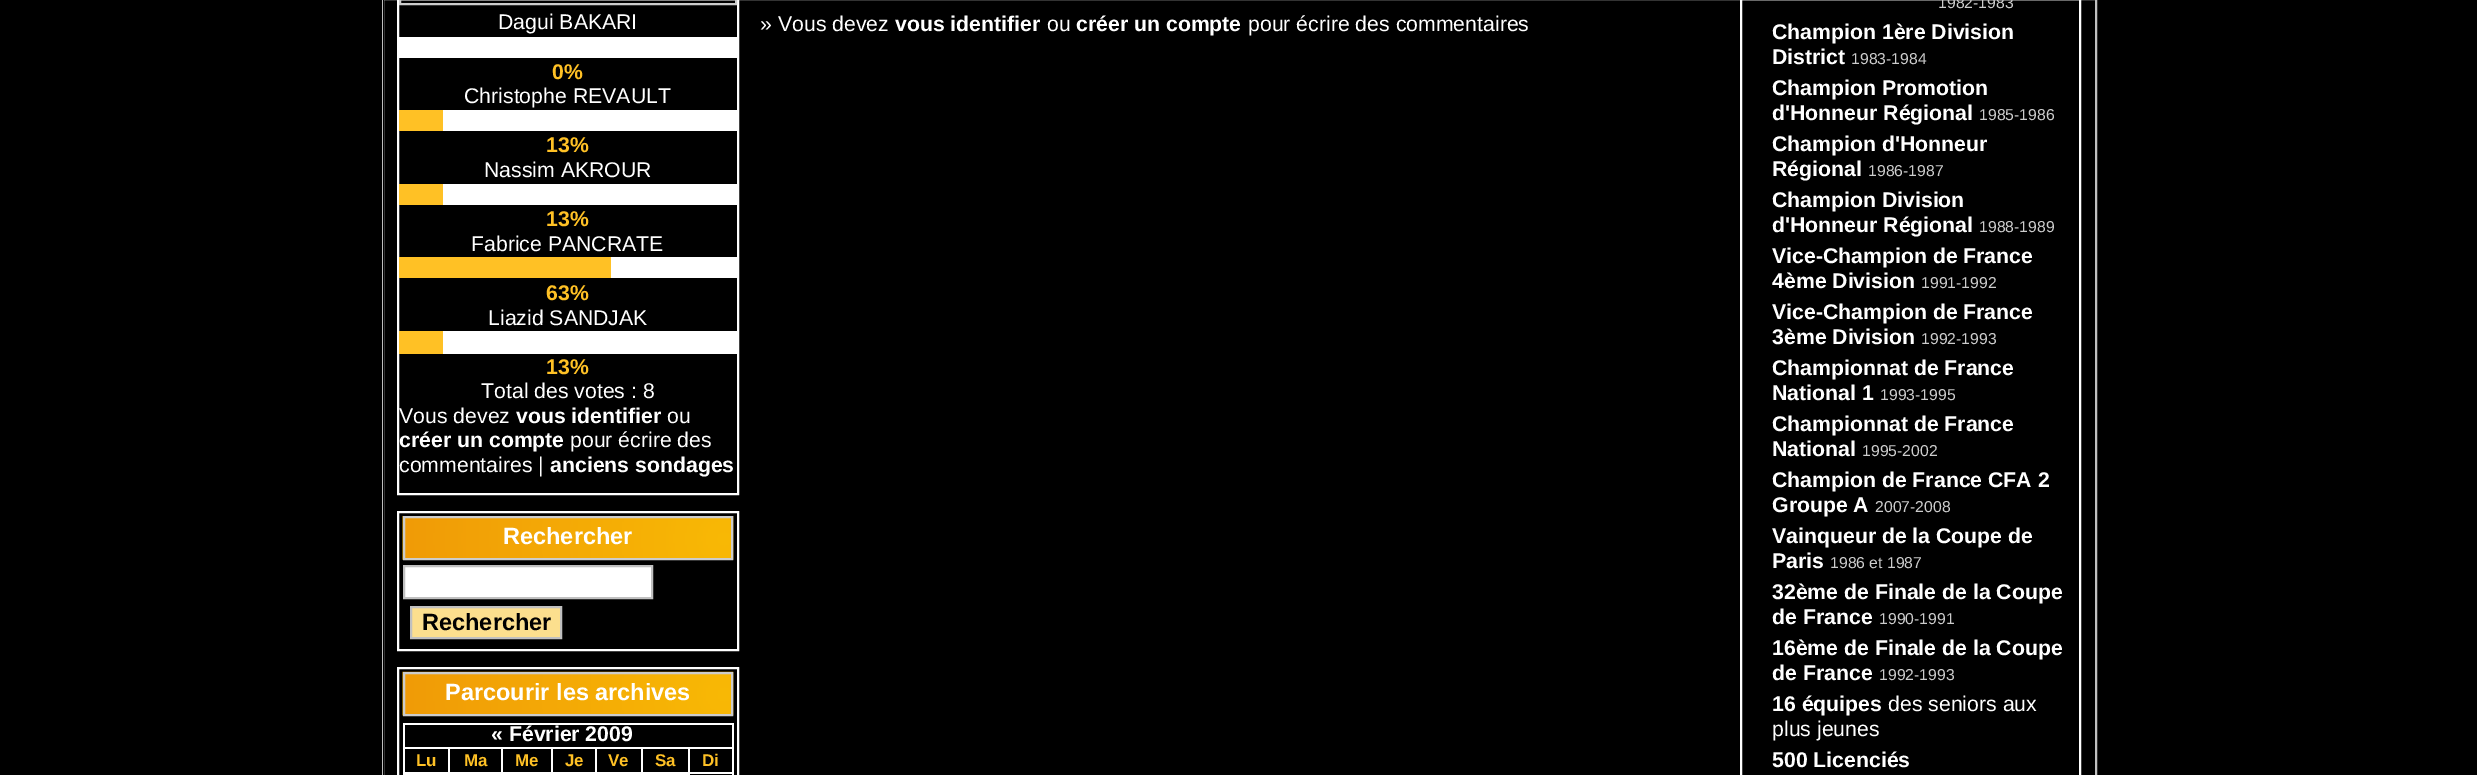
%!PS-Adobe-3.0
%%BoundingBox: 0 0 2477 775
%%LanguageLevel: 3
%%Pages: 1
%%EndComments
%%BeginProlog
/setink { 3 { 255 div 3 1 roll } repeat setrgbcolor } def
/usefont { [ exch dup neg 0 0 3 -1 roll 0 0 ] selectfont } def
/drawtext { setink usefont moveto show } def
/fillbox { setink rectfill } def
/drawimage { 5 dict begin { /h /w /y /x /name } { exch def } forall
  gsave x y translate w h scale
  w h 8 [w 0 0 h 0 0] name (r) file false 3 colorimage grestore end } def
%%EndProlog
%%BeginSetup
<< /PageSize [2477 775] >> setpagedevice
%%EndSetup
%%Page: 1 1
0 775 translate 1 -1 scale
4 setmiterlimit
0 0 2477 775 0 0 0 fillbox
192 192 192 setink
2 setlinewidth
383 -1 1713 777 rectstroke
383 0 1 775 0 0 0 fillbox
255 255 255 setink
398 -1 340 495 rectstroke
204 204 204 setink
400 -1 336 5 rectstroke
(Dagui BAKARI) 498 29 /LiberationSans-Regular 21.25 255 255 255 drawtext
399 37 338 21 255 255 255 fillbox
(0%) 552 79 /LiberationSans-Bold 21.25 255 193 37 drawtext
(Christophe REVAULT) 464 103 /LiberationSans-Regular 21.25 255 255 255 drawtext
443 110 294 21 255 255 255 fillbox
399 110 44 21 255 193 37 fillbox
(13%) 546 152 /LiberationSans-Bold 21.25 255 193 37 drawtext
(Nassim AKROUR) 484 177 /LiberationSans-Regular 21.25 255 255 255 drawtext
443 184 294 21 255 255 255 fillbox
399 184 44 21 255 193 37 fillbox
(13%) 546 226 /LiberationSans-Bold 21.25 255 193 37 drawtext
(Fabrice PANCRATE) 471 251 /LiberationSans-Regular 21.25 255 255 255 drawtext
611 257 126 21 255 255 255 fillbox
399 257 212 21 255 193 37 fillbox
(63%) 546 300 /LiberationSans-Bold 21.25 255 193 37 drawtext
(Liazid SANDJAK) 488 325 /LiberationSans-Regular 21.25 255 255 255 drawtext
443 331 294 23 255 255 255 fillbox
399 331 44 23 255 193 37 fillbox
(13%) 546 374 /LiberationSans-Bold 21.25 255 193 37 drawtext
(Total des votes : 8) 481 398 /LiberationSans-Regular 21.25 255 255 255 drawtext
(Vous devez) 399 423 /LiberationSans-Regular 21.25 255 255 255 drawtext
(vous identifier) 516 423 /LiberationSans-Bold 21.25 255 255 255 drawtext
(ou) 667 423 /LiberationSans-Regular 21.25 255 255 255 drawtext
(créer un compte) 399 447 /LiberationSans-Bold 21.25 255 255 255 drawtext
(pour écrire des) 570 447 /LiberationSans-Regular 21.25 255 255 255 drawtext
(commentaires |) 399 472 /LiberationSans-Regular 21.25 255 255 255 drawtext
(anciens sondages) 550 472 /LiberationSans-Bold 21.25 255 255 255 drawtext
398 512 340 138 rectstroke
(assets/img1.rgb) 402 516 332 44 drawimage
204 204 204 setink
404 517 328 42 rectstroke
(Rechercher) 503 544 /LiberationSans-Bold 23.5 255 255 255 drawtext
404 566 moveto 652 566 lineto 652 598 lineto 404 598 lineto closepath gsave fill grestore
192 192 192 setink
stroke
252 223 142 setink
411 607 moveto 561 607 lineto 561 638 lineto 411 638 lineto closepath gsave fill grestore
192 192 192 setink
stroke
(Rechercher) 422 630 /LiberationSans-Bold 23.5 0 0 0 drawtext
255 255 255 setink
398 668 340 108 rectstroke
(assets/img2.rgb) 402 671 332 45 drawimage
204 204 204 setink
404 673 328 42 rectstroke
(Parcourir les archives) 445 700 /LiberationSans-Bold 23.5 255 255 255 drawtext
403 723 330 2 255 255 255 fillbox
732 723 2 52 255 255 255 fillbox
404 772 284 3 255 255 255 fillbox
403 723 2 52 255 255 255 fillbox
(« Février 2009) 491 741 /LiberationSans-Bold 21.25 255 255 255 drawtext
688 747 45 2 255 255 255 fillbox
688 772 45 2 255 255 255 fillbox
688 772 2 3 255 255 255 fillbox
688 747 2 27 255 255 255 fillbox
641 747 49 2 255 255 255 fillbox
641 747 2 27 255 255 255 fillbox
595 747 47 2 255 255 255 fillbox
595 747 2 27 255 255 255 fillbox
551 747 46 2 255 255 255 fillbox
551 747 2 27 255 255 255 fillbox
501 747 52 2 255 255 255 fillbox
501 747 2 27 255 255 255 fillbox
448 747 54 2 255 255 255 fillbox
448 747 2 27 255 255 255 fillbox
403 747 47 2 255 255 255 fillbox
(Lu) 416 766 /LiberationSans-Bold 17 255 193 37 drawtext
(Ma) 464 766 /LiberationSans-Bold 17 255 193 37 drawtext
(Me) 515 766 /LiberationSans-Bold 17 255 193 37 drawtext
(Je) 565 766 /LiberationSans-Bold 17 255 193 37 drawtext
(Ve) 608 766 /LiberationSans-Bold 17 255 193 37 drawtext
(Sa) 655 766 /LiberationSans-Bold 17 255 193 37 drawtext
(Di) 702 766 /LiberationSans-Bold 17 255 193 37 drawtext
(» Vous devez) 760 31 /LiberationSans-Regular 21.25 255 255 255 drawtext
(vous identifier) 895 31 /LiberationSans-Bold 21.25 255 255 255 drawtext
(ou) 1047 31 /LiberationSans-Regular 21.25 255 255 255 drawtext
(créer un compte) 1076 31 /LiberationSans-Bold 21.25 255 255 255 drawtext
(pour écrire des commentaires) 1248 31 /LiberationSans-Regular 21.25 255 255 255 drawtext
1741 -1 339 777 rectstroke
(1982-1983) 1938 8 /LiberationSans-Regular 15.75 204 204 204 drawtext
(Champion 1ère Division) 1772 39 /LiberationSans-Bold 21.25 255 255 255 drawtext
(District) 1772 64 /LiberationSans-Bold 21.25 255 255 255 drawtext
(1983-1984) 1851 64 /LiberationSans-Regular 15.75 204 204 204 drawtext
(Champion Promotion) 1772 95 /LiberationSans-Bold 21.25 255 255 255 drawtext
(d'Honneur Régional) 1772 120 /LiberationSans-Bold 21.25 255 255 255 drawtext
(1985-1986) 1979 120 /LiberationSans-Regular 15.75 204 204 204 drawtext
(Champion d'Honneur) 1772 151 /LiberationSans-Bold 21.25 255 255 255 drawtext
(Régional) 1772 176 /LiberationSans-Bold 21.25 255 255 255 drawtext
(1986-1987) 1868 176 /LiberationSans-Regular 15.75 204 204 204 drawtext
(Champion Division) 1772 207 /LiberationSans-Bold 21.25 255 255 255 drawtext
(d'Honneur Régional) 1772 232 /LiberationSans-Bold 21.25 255 255 255 drawtext
(1988-1989) 1979 232 /LiberationSans-Regular 15.75 204 204 204 drawtext
(Vice-Champion de France) 1772 263 /LiberationSans-Bold 21.25 255 255 255 drawtext
(4ème Division) 1772 288 /LiberationSans-Bold 21.25 255 255 255 drawtext
(1991-1992) 1921 288 /LiberationSans-Regular 15.75 204 204 204 drawtext
(Vice-Champion de France) 1772 319 /LiberationSans-Bold 21.25 255 255 255 drawtext
(3ème Division) 1772 344 /LiberationSans-Bold 21.25 255 255 255 drawtext
(1992-1993) 1921 344 /LiberationSans-Regular 15.75 204 204 204 drawtext
(Championnat de France) 1772 375 /LiberationSans-Bold 21.25 255 255 255 drawtext
(National 1) 1772 400 /LiberationSans-Bold 21.25 255 255 255 drawtext
(1993-1995) 1880 400 /LiberationSans-Regular 15.75 204 204 204 drawtext
(Championnat de France) 1772 431 /LiberationSans-Bold 21.25 255 255 255 drawtext
(National) 1772 456 /LiberationSans-Bold 21.25 255 255 255 drawtext
(1995-2002) 1862 456 /LiberationSans-Regular 15.75 204 204 204 drawtext
(Champion de France CFA 2) 1772 487 /LiberationSans-Bold 21.25 255 255 255 drawtext
(Groupe A) 1772 512 /LiberationSans-Bold 21.25 255 255 255 drawtext
(2007-2008) 1875 512 /LiberationSans-Regular 15.75 204 204 204 drawtext
(Vainqueur de la Coupe de) 1772 543 /LiberationSans-Bold 21.25 255 255 255 drawtext
(Paris) 1772 568 /LiberationSans-Bold 21.25 255 255 255 drawtext
(1986 et 1987) 1830 568 /LiberationSans-Regular 15.75 204 204 204 drawtext
(32ème de Finale de la Coupe) 1772 599 /LiberationSans-Bold 21.25 255 255 255 drawtext
(de France) 1772 624 /LiberationSans-Bold 21.25 255 255 255 drawtext
(1990-1991) 1879 624 /LiberationSans-Regular 15.75 204 204 204 drawtext
(16ème de Finale de la Coupe) 1772 655 /LiberationSans-Bold 21.25 255 255 255 drawtext
(de France) 1772 680 /LiberationSans-Bold 21.25 255 255 255 drawtext
(1992-1993) 1879 680 /LiberationSans-Regular 15.75 204 204 204 drawtext
(16 équipes) 1772 711 /LiberationSans-Bold 21.25 255 255 255 drawtext
(des seniors aux) 1888 711 /LiberationSans-Regular 21.25 255 255 255 drawtext
(plus jeunes) 1772 736 /LiberationSans-Regular 21.25 255 255 255 drawtext
(500 Licenciés) 1772 767 /LiberationSans-Bold 21.25 255 255 255 drawtext
showpage
%%EOF
